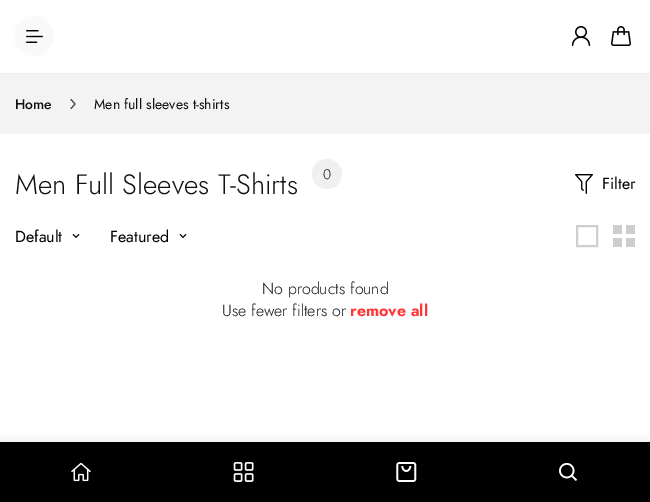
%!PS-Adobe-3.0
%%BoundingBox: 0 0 650 502
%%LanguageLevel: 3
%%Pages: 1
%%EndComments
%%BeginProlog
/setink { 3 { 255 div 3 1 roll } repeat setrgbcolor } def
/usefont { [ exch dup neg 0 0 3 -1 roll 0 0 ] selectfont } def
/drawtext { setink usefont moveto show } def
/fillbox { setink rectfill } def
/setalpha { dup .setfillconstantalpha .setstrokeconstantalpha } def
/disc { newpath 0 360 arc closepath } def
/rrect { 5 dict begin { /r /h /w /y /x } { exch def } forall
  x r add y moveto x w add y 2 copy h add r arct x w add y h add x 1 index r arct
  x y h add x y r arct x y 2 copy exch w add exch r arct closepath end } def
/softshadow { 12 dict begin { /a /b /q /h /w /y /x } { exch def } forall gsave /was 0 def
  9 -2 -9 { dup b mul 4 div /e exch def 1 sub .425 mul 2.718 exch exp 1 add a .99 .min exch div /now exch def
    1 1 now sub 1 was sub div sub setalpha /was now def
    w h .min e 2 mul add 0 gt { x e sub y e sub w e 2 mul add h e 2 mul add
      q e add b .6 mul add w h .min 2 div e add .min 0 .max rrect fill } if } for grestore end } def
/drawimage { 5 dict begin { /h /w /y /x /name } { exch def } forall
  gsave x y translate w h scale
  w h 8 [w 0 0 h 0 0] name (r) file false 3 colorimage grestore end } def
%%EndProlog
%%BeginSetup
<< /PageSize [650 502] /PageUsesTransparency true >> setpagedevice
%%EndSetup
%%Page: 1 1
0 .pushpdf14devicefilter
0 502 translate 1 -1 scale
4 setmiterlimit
0 0 650 502 255 255 255 fillbox
0 73 650 1 238 238 238 fillbox
249 249 249 setink
34 36 20 disc fill
(assets/img1.rgb) 26 30 17 13 drawimage
(assets/img2.rgb) 571 26 20 20 drawimage
(assets/img3.rgb) 611 26 20 20 drawimage
0 0 0 setink
0 442 650 60 0 5 0.11 softshadow
0 442 650 60 0 0 0 fillbox
(assets/img4.rgb) 71 462 20 20 drawimage
(assets/img5.rgb) 233 462 21 20 drawimage
(assets/img6.rgb) 396 462 21 20 drawimage
(assets/img7.rgb) 559 462 19 19 drawimage
0 74 650 60 243 243 243 fillbox
(Home) 15 109 /Jost-Medium 14 17 17 17 drawtext
73 73 73 setink
1.1 setlinewidth
1 setlinecap
1 setlinejoin
71 99.5 moveto 75 104 lineto 71 108.5 lineto stroke
(Men full sleeves t-shirts) 94 109 /Jost-Regular 14 17 17 17 drawtext
(Men Full Sleeves T-Shirts) 15 194 /Jost-Light 28 17 17 17 drawtext
240 240 240 setink
327 174 15 disc fill
(0) 323 179 /Jost-Light 14 17 17 17 drawtext
(assets/img8.rgb) 575 174 18 20 drawimage
(Filter) 602 189 /Jost-Regular 16 0 0 0 drawtext
(Default) 15 242 /Jost-Regular 16 0 0 0 drawtext
(assets/img9.rgb) 72 234 8 4 drawimage
(Featured) 110 242 /Jost-Regular 16 0 0 0 drawtext
(assets/img9.rgb) 179 234 8 4 drawimage
206 206 206 setink
2 setlinewidth
0 setlinecap
0 setlinejoin
577 226 20 20 rectstroke
(assets/img10.rgb) 613 225 22 22 drawimage
(No products found) 262 294 /Jost-Light 16 17 17 17 drawtext
(Use fewer filters or) 222 316 /Jost-Light 16 17 17 17 drawtext
(remove all) 350 316 /Jost-Bold 16 255 54 54 drawtext
.poppdf14devicefilter showpage
%%EOF
